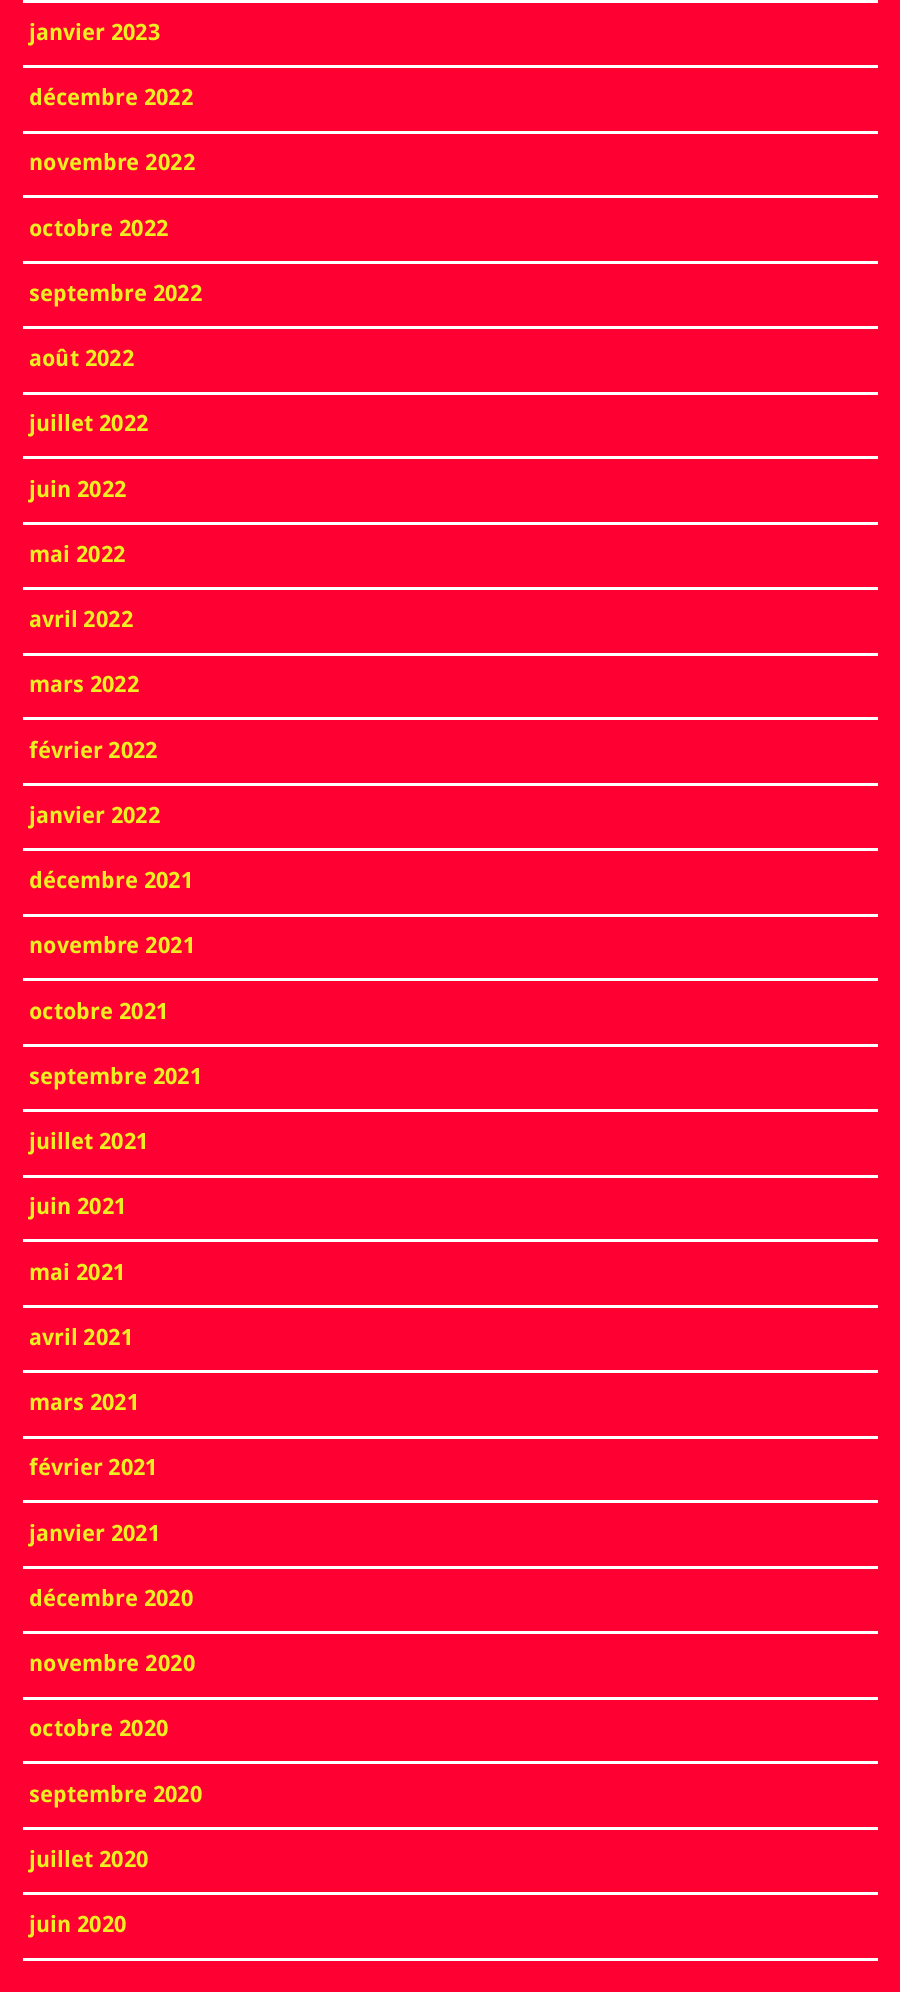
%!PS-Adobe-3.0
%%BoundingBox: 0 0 900 1992
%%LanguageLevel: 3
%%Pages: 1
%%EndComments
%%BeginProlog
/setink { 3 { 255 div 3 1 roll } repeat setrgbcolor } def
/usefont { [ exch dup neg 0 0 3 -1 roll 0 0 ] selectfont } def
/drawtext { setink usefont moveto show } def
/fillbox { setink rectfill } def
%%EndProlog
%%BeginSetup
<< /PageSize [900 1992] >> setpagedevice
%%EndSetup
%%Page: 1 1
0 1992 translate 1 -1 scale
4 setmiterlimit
0 0 900 1992 254 0 50 fillbox
23 0 855 3 255 255 255 fillbox
23 65 855 3 255 255 255 fillbox
(janvier 2023) 29 40 /DroidSans-Bold 22.5 238 238 34 drawtext
23 131 855 3 255 255 255 fillbox
(décembre 2022) 29 105 /DroidSans-Bold 22.5 238 238 34 drawtext
23 195 855 3 255 255 255 fillbox
(novembre 2022) 29 170 /DroidSans-Bold 22.5 238 238 34 drawtext
23 261 855 3 255 255 255 fillbox
(octobre 2022) 29 236 /DroidSans-Bold 22.5 238 238 34 drawtext
23 326 855 3 255 255 255 fillbox
(septembre 2022) 29 301 /DroidSans-Bold 22.5 238 238 34 drawtext
23 392 855 3 255 255 255 fillbox
(août 2022) 29 366 /DroidSans-Bold 22.5 238 238 34 drawtext
23 456 855 3 255 255 255 fillbox
(juillet 2022) 29 431 /DroidSans-Bold 22.5 238 238 34 drawtext
23 522 855 3 255 255 255 fillbox
(juin 2022) 29 497 /DroidSans-Bold 22.5 238 238 34 drawtext
23 587 855 3 255 255 255 fillbox
(mai 2022) 29 562 /DroidSans-Bold 22.5 238 238 34 drawtext
23 653 855 3 255 255 255 fillbox
(avril 2022) 29 627 /DroidSans-Bold 22.5 238 238 34 drawtext
23 717 855 3 255 255 255 fillbox
(mars 2022) 29 692 /DroidSans-Bold 22.5 238 238 34 drawtext
23 783 855 3 255 255 255 fillbox
(février 2022) 29 758 /DroidSans-Bold 22.5 238 238 34 drawtext
23 848 855 3 255 255 255 fillbox
(janvier 2022) 29 823 /DroidSans-Bold 22.5 238 238 34 drawtext
23 914 855 3 255 255 255 fillbox
(décembre 2021) 29 888 /DroidSans-Bold 22.5 238 238 34 drawtext
23 978 855 3 255 255 255 fillbox
(novembre 2021) 29 953 /DroidSans-Bold 22.5 238 238 34 drawtext
23 1044 855 3 255 255 255 fillbox
(octobre 2021) 29 1019 /DroidSans-Bold 22.5 238 238 34 drawtext
23 1109 855 3 255 255 255 fillbox
(septembre 2021) 29 1084 /DroidSans-Bold 22.5 238 238 34 drawtext
23 1175 855 3 255 255 255 fillbox
(juillet 2021) 29 1149 /DroidSans-Bold 22.5 238 238 34 drawtext
23 1239 855 3 255 255 255 fillbox
(juin 2021) 29 1214 /DroidSans-Bold 22.5 238 238 34 drawtext
23 1305 855 3 255 255 255 fillbox
(mai 2021) 29 1280 /DroidSans-Bold 22.5 238 238 34 drawtext
23 1370 855 3 255 255 255 fillbox
(avril 2021) 29 1345 /DroidSans-Bold 22.5 238 238 34 drawtext
23 1436 855 3 255 255 255 fillbox
(mars 2021) 29 1410 /DroidSans-Bold 22.5 238 238 34 drawtext
23 1500 855 3 255 255 255 fillbox
(février 2021) 29 1475 /DroidSans-Bold 22.5 238 238 34 drawtext
23 1566 855 3 255 255 255 fillbox
(janvier 2021) 29 1541 /DroidSans-Bold 22.5 238 238 34 drawtext
23 1631 855 3 255 255 255 fillbox
(décembre 2020) 29 1606 /DroidSans-Bold 22.5 238 238 34 drawtext
23 1697 855 3 255 255 255 fillbox
(novembre 2020) 29 1671 /DroidSans-Bold 22.5 238 238 34 drawtext
23 1761 855 3 255 255 255 fillbox
(octobre 2020) 29 1736 /DroidSans-Bold 22.5 238 238 34 drawtext
23 1827 855 3 255 255 255 fillbox
(septembre 2020) 29 1802 /DroidSans-Bold 22.5 238 238 34 drawtext
23 1892 855 3 255 255 255 fillbox
(juillet 2020) 29 1867 /DroidSans-Bold 22.5 238 238 34 drawtext
23 1958 855 3 255 255 255 fillbox
(juin 2020) 29 1932 /DroidSans-Bold 22.5 238 238 34 drawtext
showpage
%%EOF
